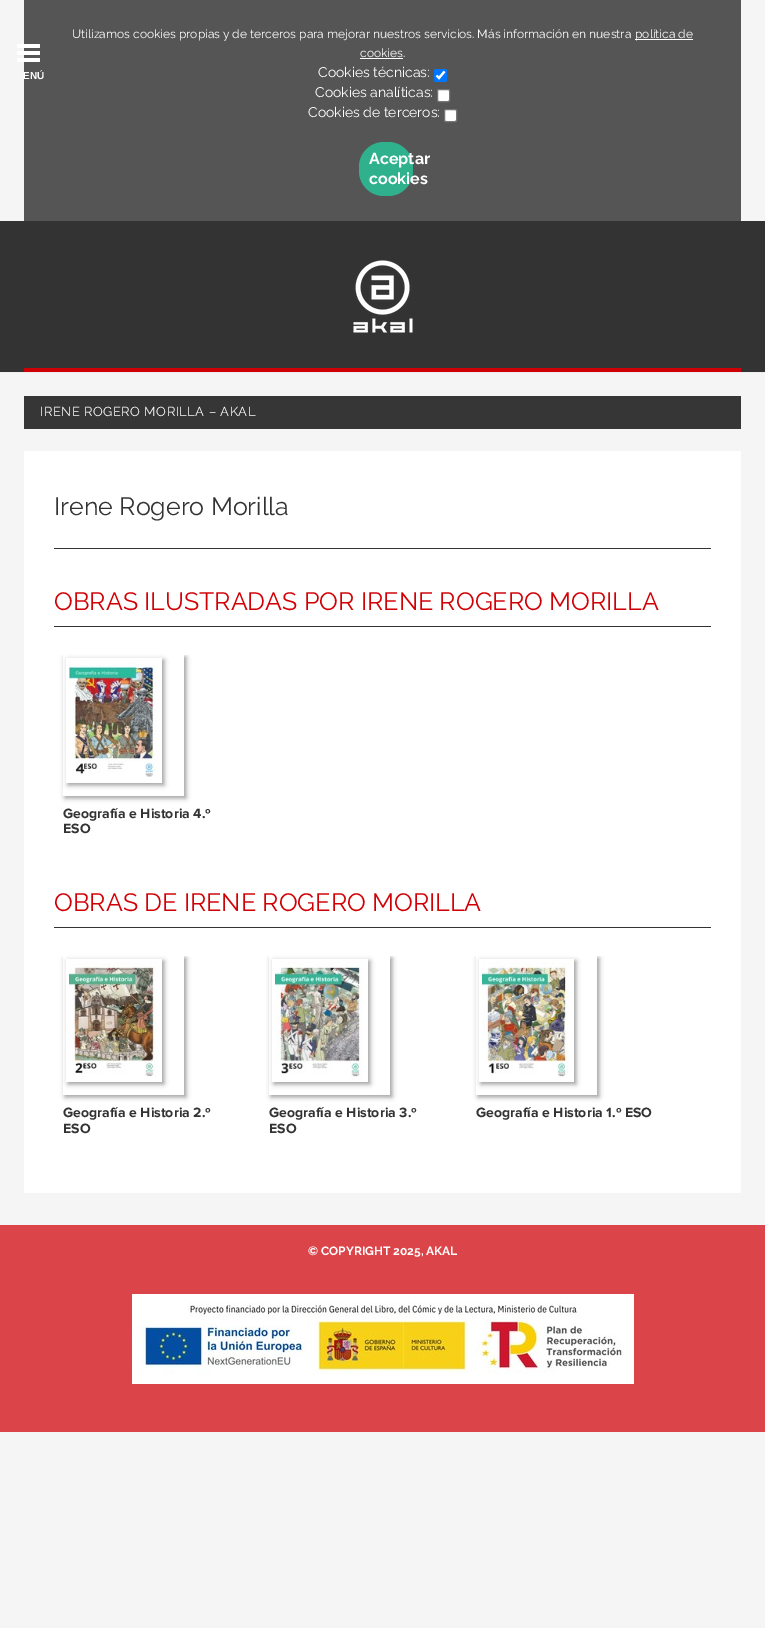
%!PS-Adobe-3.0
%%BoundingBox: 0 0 765 1628
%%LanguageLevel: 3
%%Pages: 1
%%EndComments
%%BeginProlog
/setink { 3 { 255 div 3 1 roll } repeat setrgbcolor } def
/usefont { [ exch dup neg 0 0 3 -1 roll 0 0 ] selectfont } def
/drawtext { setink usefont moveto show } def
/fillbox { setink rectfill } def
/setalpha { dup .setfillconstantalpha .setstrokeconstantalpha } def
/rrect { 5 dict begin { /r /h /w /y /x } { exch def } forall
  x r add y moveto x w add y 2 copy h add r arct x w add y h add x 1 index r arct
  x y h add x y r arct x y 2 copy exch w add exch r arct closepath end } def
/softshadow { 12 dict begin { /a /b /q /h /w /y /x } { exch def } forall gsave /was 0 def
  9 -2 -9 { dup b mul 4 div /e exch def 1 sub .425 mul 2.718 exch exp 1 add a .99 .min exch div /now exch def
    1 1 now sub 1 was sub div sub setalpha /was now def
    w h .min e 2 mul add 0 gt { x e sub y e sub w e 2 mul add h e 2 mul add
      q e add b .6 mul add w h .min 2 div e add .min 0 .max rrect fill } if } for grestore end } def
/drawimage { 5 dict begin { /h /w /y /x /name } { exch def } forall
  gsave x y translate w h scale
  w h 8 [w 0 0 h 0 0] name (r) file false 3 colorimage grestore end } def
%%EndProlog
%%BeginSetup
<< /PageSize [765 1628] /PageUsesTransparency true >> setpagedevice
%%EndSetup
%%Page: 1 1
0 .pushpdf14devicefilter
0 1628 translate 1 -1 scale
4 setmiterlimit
0 0 765 1628 245 245 245 fillbox
0 221 765 151 51 51 51 fillbox
0 372 765 1 238 238 238 fillbox
24 368 717 4 206 0 5 fillbox
24 0 717 221 85 85 85 fillbox
255 255 255 setink
17 44 23 4 1 rrect fill
17 51 23 4 1 rrect fill
17 58 23 4 1 rrect fill
(ENÚ) 23 79 /LiberationSans-Bold 10 255 255 255 drawtext
(assets/img1.rgb) 353 260 60 73 drawimage
(Utilizamos cookies propias y de terceros para mejorar nuestros servicios. Más información en nuestra) 72 38 /Raleway-Regular 12 255 255 255 drawtext
635 39 58 1 255 255 255 fillbox
(política de) 635 38 /Raleway-Regular 12 255 255 255 drawtext
(cookies.) 360 57 /Raleway-Regular 12 255 255 255 drawtext
360 58 43 1 255 255 255 fillbox
(Cookies técnicas:) 318 77 /Raleway-Regular 14 255 255 255 drawtext
0 117 255 setink
434 69 13 13 2 rrect fill
255 255 255 setink
2.1 setlinewidth
436.5 75.5 moveto 439 78 lineto 444.5 71.5 lineto stroke
(Cookies analíticas:) 315 97 /Raleway-Regular 14 255 255 255 drawtext
437.5 89.5 12 12 1.5 rrect gsave fill grestore
118 118 118 setink
1 setlinewidth
stroke
(Cookies de terceros:) 308 117 /Raleway-Regular 14 255 255 255 drawtext
444.5 109.5 12 12 1.5 rrect gsave fill grestore
118 118 118 setink
stroke
47 177 141 setink
359 142 54 54 25 rrect fill
(Aceptar) 369 164 /Raleway-Bold 16 255 255 255 drawtext
(cookies) 369 184 /Raleway-Bold 16 255 255 255 drawtext
24 396 717 33 54 54 54 fillbox
/Raleway-Regular 13 usefont
255 255 255 setink
40 416 moveto 0.5 0 (IRENE ROGERO MORILLA – AKAL) ashow
24 451 717 742 255 255 255 fillbox
54 548 657 1 51 51 51 fillbox
(Irene Rogero Morilla) 54 515 /Raleway-Regular 25 51 51 51 drawtext
54 626 657 1 51 51 51 fillbox
(OBRAS ILUSTRADAS POR IRENE ROGERO MORILLA) 54 610 /Raleway-Regular 25 209 0 5 drawtext
gsave
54 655 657 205 rectclip
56 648 moveto 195 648 lineto 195 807 lineto 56 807 lineto closepath 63 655 moveto 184 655 lineto 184 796 lineto 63 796 lineto closepath eoclip newpath
153 153 153 setink
65 657 121 141 0 2.5 1 softshadow
grestore
gsave
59 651 moveto 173 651 lineto 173 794 lineto 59 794 lineto closepath 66 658 moveto 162 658 lineto 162 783 lineto 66 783 lineto closepath eoclip newpath
153 153 153 setink
68 660 96 125 0 2.5 1 softshadow
grestore
(assets/img2.rgb) 69 661 88 116 drawimage
(Geografía e Historia 4.º) 63 818 /ProximaNova-Bold 14 51 51 51 drawtext
(ESO) 63 833 /ProximaNova-Bold 14 51 51 51 drawtext
54 927 657 1 51 51 51 fillbox
(OBRAS DE IRENE ROGERO MORILLA) 54 911 /Raleway-Regular 25 209 0 5 drawtext
gsave
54 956 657 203 rectclip
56 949 moveto 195 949 lineto 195 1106 lineto 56 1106 lineto closepath 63 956 moveto 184 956 lineto 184 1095 lineto 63 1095 lineto closepath eoclip newpath
153 153 153 setink
65 958 121 139 0 2.5 1 softshadow
grestore
gsave
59 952 moveto 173 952 lineto 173 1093 lineto 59 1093 lineto closepath 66 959 moveto 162 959 lineto 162 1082 lineto 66 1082 lineto closepath eoclip newpath
153 153 153 setink
68 961 96 123 0 2.5 1 softshadow
grestore
(assets/img3.rgb) 69 962 88 115 drawimage
(Geografía e Historia 2.º) 63 1117 /ProximaNova-Bold 14 51 51 51 drawtext
(ESO) 63 1133 /ProximaNova-Bold 14 51 51 51 drawtext
gsave
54 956 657 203 rectclip
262 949 moveto 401 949 lineto 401 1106 lineto 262 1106 lineto closepath 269 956 moveto 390 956 lineto 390 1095 lineto 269 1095 lineto closepath eoclip newpath
153 153 153 setink
271 958 121 139 0 2.5 1 softshadow
grestore
gsave
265 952 moveto 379 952 lineto 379 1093 lineto 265 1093 lineto closepath 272 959 moveto 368 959 lineto 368 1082 lineto 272 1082 lineto closepath eoclip newpath
153 153 153 setink
274 961 96 123 0 2.5 1 softshadow
grestore
(assets/img4.rgb) 275 962 88 117 drawimage
(Geografía e Historia 3.º) 269 1117 /ProximaNova-Bold 14 51 51 51 drawtext
(ESO) 269 1133 /ProximaNova-Bold 14 51 51 51 drawtext
gsave
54 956 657 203 rectclip
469 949 moveto 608 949 lineto 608 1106 lineto 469 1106 lineto closepath 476 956 moveto 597 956 lineto 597 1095 lineto 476 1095 lineto closepath eoclip newpath
153 153 153 setink
478 958 121 139 0 2.5 1 softshadow
grestore
gsave
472 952 moveto 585 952 lineto 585 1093 lineto 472 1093 lineto closepath 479 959 moveto 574 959 lineto 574 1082 lineto 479 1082 lineto closepath eoclip newpath
153 153 153 setink
481 961 95 123 0 2.5 1 softshadow
grestore
(assets/img5.rgb) 482 962 87 115 drawimage
(Geografía e Historia 1.º ESO) 476 1117 /ProximaNova-Bold 14 51 51 51 drawtext
0 1225 765 207 219 68 72 fillbox
(© COPYRIGHT 2025, AKAL) 308 1255 /Raleway-Bold 12 255 255 255 drawtext
(assets/img6.rgb) 132 1294 502 90 drawimage
.poppdf14devicefilter showpage
%%EOF
